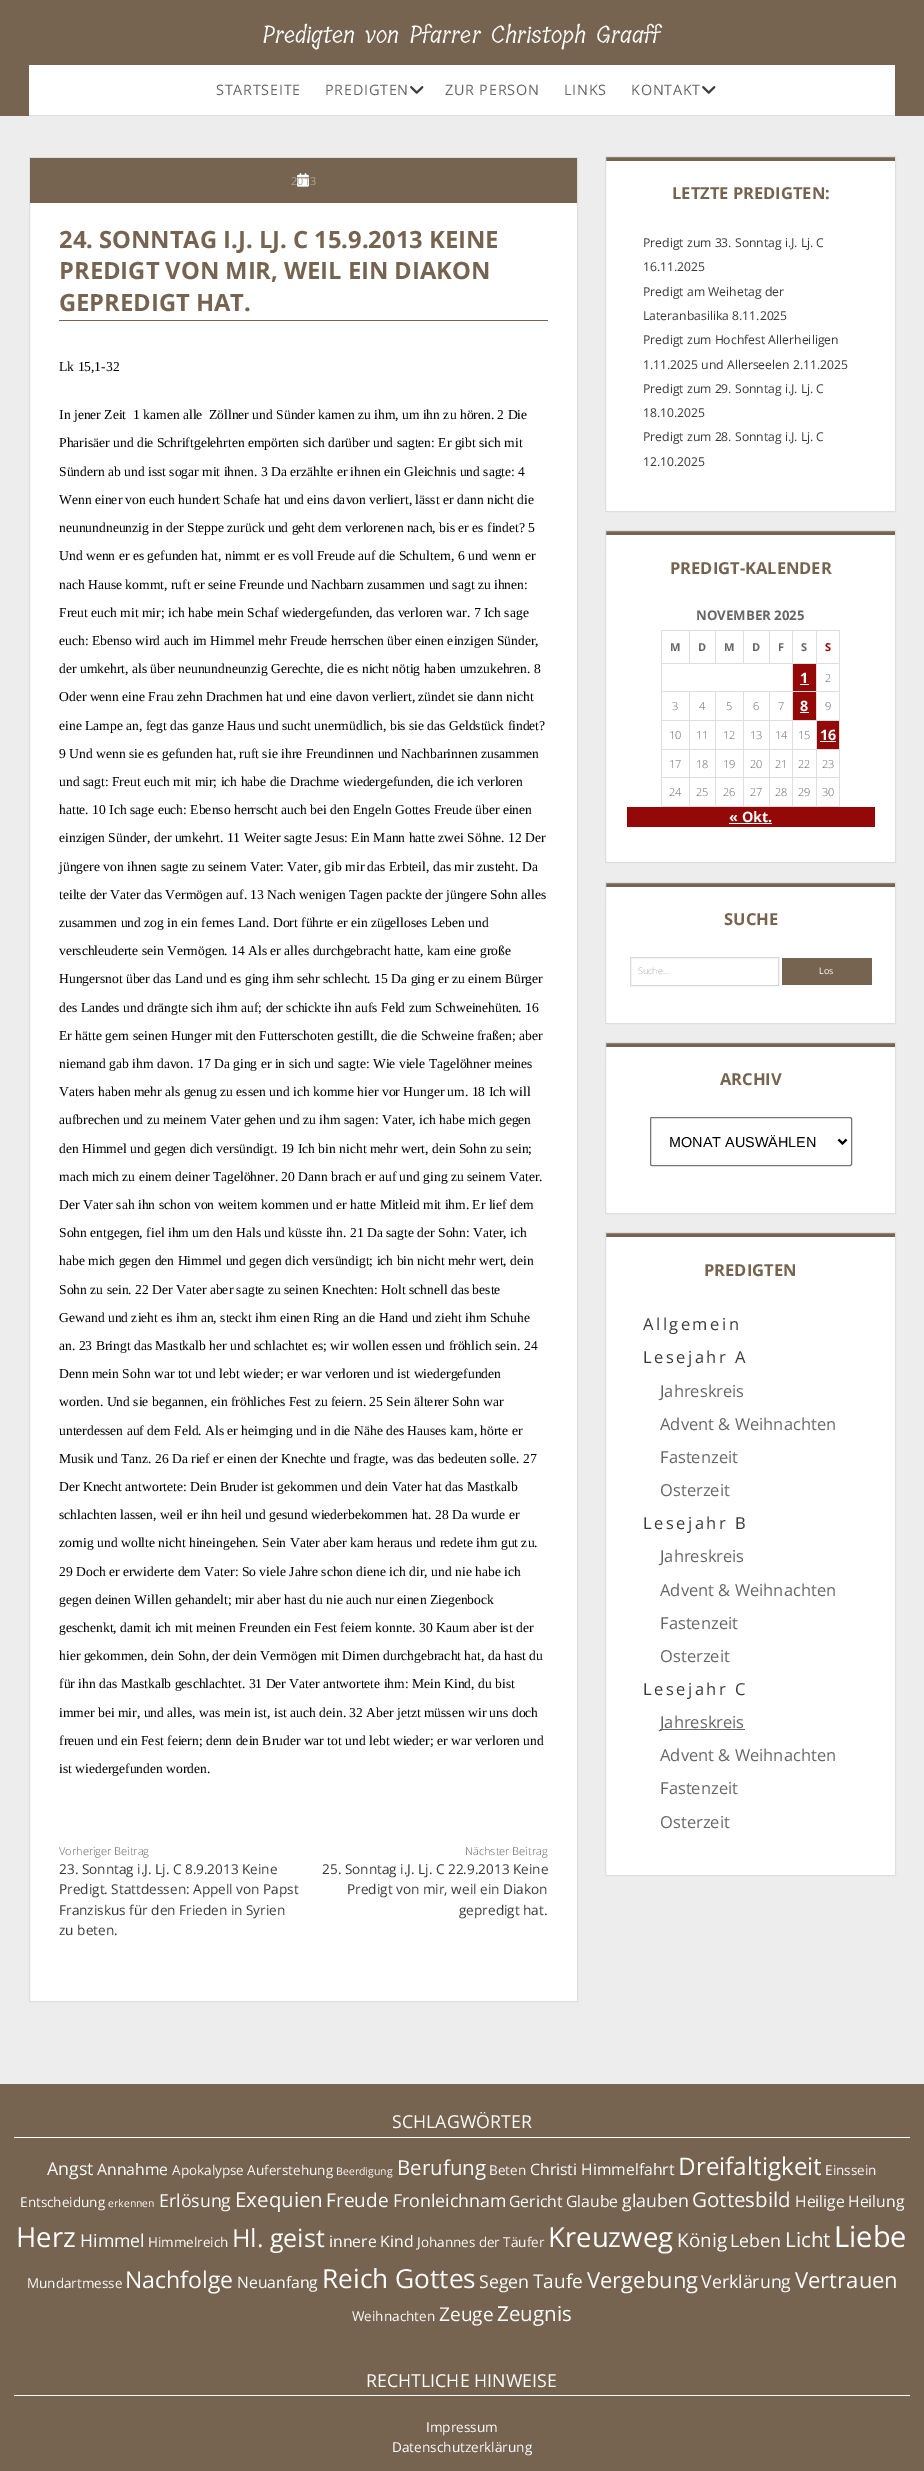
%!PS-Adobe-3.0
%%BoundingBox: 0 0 924 2471
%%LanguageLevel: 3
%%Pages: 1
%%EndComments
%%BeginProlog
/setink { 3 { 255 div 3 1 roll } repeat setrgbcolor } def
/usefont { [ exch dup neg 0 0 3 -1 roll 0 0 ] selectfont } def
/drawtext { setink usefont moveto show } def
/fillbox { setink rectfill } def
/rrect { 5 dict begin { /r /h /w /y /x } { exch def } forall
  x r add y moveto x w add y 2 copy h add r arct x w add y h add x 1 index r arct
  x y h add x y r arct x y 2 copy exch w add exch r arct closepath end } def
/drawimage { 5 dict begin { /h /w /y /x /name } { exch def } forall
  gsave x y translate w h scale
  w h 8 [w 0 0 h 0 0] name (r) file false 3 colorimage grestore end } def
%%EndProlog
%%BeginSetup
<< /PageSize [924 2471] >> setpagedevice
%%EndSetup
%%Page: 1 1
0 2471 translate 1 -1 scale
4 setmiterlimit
0 0 924 2471 237 237 237 fillbox
0 0 924 116 118 100 80 fillbox
(Predigten von Pfarrer Christoph Graaff) 262 43 /Tillana-Regular 23.75 255 255 255 drawtext
29 65 866 50 255 255 255 fillbox
29 115 866 1 222 222 222 fillbox
/OpenSans-Regular 14.4 usefont
102 102 102 setink
216 95 moveto 0.75 0 (STARTSEITE) ashow
325 95 moveto 0.75 0 (PREDIGTEN) ashow
(assets/img1.rgb) 410 86 14 8 drawimage
445 95 moveto 0.75 0 (ZUR PERSON) ashow
564 95 moveto 0.75 0 (LINKS) ashow
631 95 moveto 0.75 0 (KONTAKT) ashow
(assets/img1.rgb) 702 86 14 8 drawimage
30 203 547 1798 255 255 255 fillbox
222 222 222 setink
29.5 157.5 548 1844 rectstroke
30 158 547 45 118 100 80 fillbox
(assets/img2.rgb) 297 173 12 14 drawimage
(2013) 291 185 /OpenSans-Regular 11 176 165 154 drawtext
59 320 489 1 118 100 80 fillbox
(24. SONNTAG I.J. LJ. C 15.9.2013 KEINE) 59 248 /OpenSans-Bold 23.75 118 100 80 drawtext
(PREDIGT VON MIR, WEIL EIN DIAKON) 59 279 /OpenSans-Bold 23.75 118 100 80 drawtext
(GEPREDIGT HAT.) 59 311 /OpenSans-Bold 23.75 118 100 80 drawtext
(Lk 15,1-32) 59 371 /LiberationSerif-Regular 13.6 0 0 0 drawtext
(In jener Zeit) 59 419 /LiberationSerif-Regular 13.6 0 0 0 drawtext
(1 kamen alle) 133 419 /LiberationSerif-Regular 13.6 0 0 0 drawtext
(Zöllner und Sünder kamen zu ihm, um ihn zu hören. 2 Die) 209 419 /LiberationSerif-Regular 13.6 0 0 0 drawtext
(Pharisäer und die Schriftgelehrten empörten sich darüber und sagten: Er gibt sich mit) 59 447 /LiberationSerif-Regular 13.6 0 0 0 drawtext
(Sündern ab und isst sogar mit ihnen. 3 Da erzählte er ihnen ein Gleichnis und sagte: 4) 59 476 /LiberationSerif-Regular 13.6 0 0 0 drawtext
(Wenn einer von euch hundert Schafe hat und eins davon verliert, lässt er dann nicht die) 59 504 /LiberationSerif-Regular 13.6 0 0 0 drawtext
(neunundneunzig in der Steppe zurück und geht dem verlorenen nach, bis er es findet? 5) 59 532 /LiberationSerif-Regular 13.6 0 0 0 drawtext
(Und wenn er es gefunden hat, nimmt er es voll Freude auf die Schultern, 6 und wenn er) 59 560 /LiberationSerif-Regular 13.6 0 0 0 drawtext
(nach Hause kommt, ruft er seine Freunde und Nachbarn zusammen und sagt zu ihnen:) 59 589 /LiberationSerif-Regular 13.6 0 0 0 drawtext
(Freut euch mit mir; ich habe mein Schaf wiedergefunden, das verloren war. 7 Ich sage) 59 617 /LiberationSerif-Regular 13.6 0 0 0 drawtext
(euch: Ebenso wird auch im Himmel mehr Freude herrschen über einen einzigen Sünder,) 59 645 /LiberationSerif-Regular 13.6 0 0 0 drawtext
(der umkehrt, als über neunundneunzig Gerechte, die es nicht nötig haben umzukehren. 8) 59 673 /LiberationSerif-Regular 13.6 0 0 0 drawtext
(Oder wenn eine Frau zehn Drachmen hat und eine davon verliert, zündet sie dann nicht) 59 701 /LiberationSerif-Regular 13.6 0 0 0 drawtext
(eine Lampe an, fegt das ganze Haus und sucht unermüdlich, bis sie das Geldstück findet?) 59 730 /LiberationSerif-Regular 13.6 0 0 0 drawtext
(9 Und wenn sie es gefunden hat, ruft sie ihre Freundinnen und Nachbarinnen zusammen) 59 758 /LiberationSerif-Regular 13.6 0 0 0 drawtext
(und sagt: Freut euch mit mir; ich habe die Drachme wiedergefunden, die ich verloren) 59 786 /LiberationSerif-Regular 13.6 0 0 0 drawtext
(hatte. 10 Ich sage euch: Ebenso herrscht auch bei den Engeln Gottes Freude über einen) 59 814 /LiberationSerif-Regular 13.6 0 0 0 drawtext
(einzigen Sünder, der umkehrt. 11 Weiter sagte Jesus: Ein Mann hatte zwei Söhne. 12 Der) 59 842 /LiberationSerif-Regular 13.6 0 0 0 drawtext
(jüngere von ihnen sagte zu seinem Vater: Vater, gib mir das Erbteil, das mir zusteht. Da) 59 871 /LiberationSerif-Regular 13.6 0 0 0 drawtext
(teilte der Vater das Vermögen auf. 13 Nach wenigen Tagen packte der jüngere Sohn alles) 59 899 /LiberationSerif-Regular 13.6 0 0 0 drawtext
(zusammen und zog in ein fernes Land. Dort führte er ein zügelloses Leben und) 59 927 /LiberationSerif-Regular 13.6 0 0 0 drawtext
(verschleuderte sein Vermögen. 14 Als er alles durchgebracht hatte, kam eine große) 59 955 /LiberationSerif-Regular 13.6 0 0 0 drawtext
(Hungersnot über das Land und es ging ihm sehr schlecht. 15 Da ging er zu einem Bürger) 59 983 /LiberationSerif-Regular 13.6 0 0 0 drawtext
(des Landes und drängte sich ihm auf; der schickte ihn aufs Feld zum Schweinehüten. 16) 59 1012 /LiberationSerif-Regular 13.6 0 0 0 drawtext
(Er hätte gern seinen Hunger mit den Futterschoten gestillt, die die Schweine fraßen; aber) 59 1040 /LiberationSerif-Regular 13.6 0 0 0 drawtext
(niemand gab ihm davon. 17 Da ging er in sich und sagte: Wie viele Tagelöhner meines) 59 1068 /LiberationSerif-Regular 13.6 0 0 0 drawtext
(Vaters haben mehr als genug zu essen und ich komme hier vor Hunger um. 18 Ich will) 59 1096 /LiberationSerif-Regular 13.6 0 0 0 drawtext
(aufbrechen und zu meinem Vater gehen und zu ihm sagen: Vater, ich habe mich gegen) 59 1124 /LiberationSerif-Regular 13.6 0 0 0 drawtext
(den Himmel und gegen dich versündigt. 19 Ich bin nicht mehr wert, dein Sohn zu sein;) 59 1153 /LiberationSerif-Regular 13.6 0 0 0 drawtext
(mach mich zu einem deiner Tagelöhner. 20 Dann brach er auf und ging zu seinem Vater.) 59 1181 /LiberationSerif-Regular 13.6 0 0 0 drawtext
(Der Vater sah ihn schon von weitem kommen und er hatte Mitleid mit ihm. Er lief dem) 59 1209 /LiberationSerif-Regular 13.6 0 0 0 drawtext
(Sohn entgegen, fiel ihm um den Hals und küsste ihn. 21 Da sagte der Sohn: Vater, ich) 59 1237 /LiberationSerif-Regular 13.6 0 0 0 drawtext
(habe mich gegen den Himmel und gegen dich versündigt; ich bin nicht mehr wert, dein) 59 1265 /LiberationSerif-Regular 13.6 0 0 0 drawtext
(Sohn zu sein. 22 Der Vater aber sagte zu seinen Knechten: Holt schnell das beste) 59 1294 /LiberationSerif-Regular 13.6 0 0 0 drawtext
(Gewand und zieht es ihm an, steckt ihm einen Ring an die Hand und zieht ihm Schuhe) 59 1322 /LiberationSerif-Regular 13.6 0 0 0 drawtext
(an. 23 Bringt das Mastkalb her und schlachtet es; wir wollen essen und fröhlich sein. 24) 59 1350 /LiberationSerif-Regular 13.6 0 0 0 drawtext
(Denn mein Sohn war tot und lebt wieder; er war verloren und ist wiedergefunden) 59 1378 /LiberationSerif-Regular 13.6 0 0 0 drawtext
(worden. Und sie begannen, ein fröhliches Fest zu feiern. 25 Sein älterer Sohn war) 59 1406 /LiberationSerif-Regular 13.6 0 0 0 drawtext
(unterdessen auf dem Feld. Als er heimging und in die Nähe des Hauses kam, hörte er) 59 1435 /LiberationSerif-Regular 13.6 0 0 0 drawtext
(Musik und Tanz. 26 Da rief er einen der Knechte und fragte, was das bedeuten solle. 27) 59 1463 /LiberationSerif-Regular 13.6 0 0 0 drawtext
(Der Knecht antwortete: Dein Bruder ist gekommen und dein Vater hat das Mastkalb) 59 1491 /LiberationSerif-Regular 13.6 0 0 0 drawtext
(schlachten lassen, weil er ihn heil und gesund wiederbekommen hat. 28 Da wurde er) 59 1519 /LiberationSerif-Regular 13.6 0 0 0 drawtext
(zornig und wollte nicht hineingehen. Sein Vater aber kam heraus und redete ihm gut zu.) 59 1547 /LiberationSerif-Regular 13.6 0 0 0 drawtext
(29 Doch er erwiderte dem Vater: So viele Jahre schon diene ich dir, und nie habe ich) 59 1576 /LiberationSerif-Regular 13.6 0 0 0 drawtext
(gegen deinen Willen gehandelt; mir aber hast du nie auch nur einen Ziegenbock) 59 1604 /LiberationSerif-Regular 13.6 0 0 0 drawtext
(geschenkt, damit ich mit meinen Freunden ein Fest feiern konnte. 30 Kaum aber ist der) 59 1632 /LiberationSerif-Regular 13.6 0 0 0 drawtext
(hier gekommen, dein Sohn, der dein Vermögen mit Dirnen durchgebracht hat, da hast du) 59 1660 /LiberationSerif-Regular 13.6 0 0 0 drawtext
(für ihn das Mastkalb geschlachtet. 31 Der Vater antwortete ihm: Mein Kind, du bist) 59 1688 /LiberationSerif-Regular 13.6 0 0 0 drawtext
(immer bei mir, und alles, was mein ist, ist auch dein. 32 Aber jetzt müssen wir uns doch) 59 1717 /LiberationSerif-Regular 13.6 0 0 0 drawtext
(freuen und ein Fest feiern; denn dein Bruder war tot und lebt wieder; er war verloren und) 59 1745 /LiberationSerif-Regular 13.6 0 0 0 drawtext
(ist wiedergefunden worden.) 59 1773 /LiberationSerif-Regular 13.6 0 0 0 drawtext
(Vorheriger Beitrag) 59 1855 /OpenSans-Light 11 102 102 102 drawtext
(23. Sonntag i.J. Lj. C 8.9.2013 Keine) 59 1874 /OpenSans-Regular 13.6 58 58 58 drawtext
(Predigt. Stattdessen: Appell von Papst) 59 1894 /OpenSans-Regular 13.6 58 58 58 drawtext
(Franziskus für den Frieden in Syrien) 59 1915 /OpenSans-Regular 13.6 58 58 58 drawtext
(zu beten.) 59 1935 /OpenSans-Regular 13.6 58 58 58 drawtext
(Nächster Beitrag) 465 1855 /OpenSans-Light 11 102 102 102 drawtext
(25. Sonntag i.J. Lj. C 22.9.2013 Keine) 322 1874 /OpenSans-Regular 13.6 58 58 58 drawtext
(Predigt von mir, weil ein Diakon) 347 1894 /OpenSans-Regular 13.6 58 58 58 drawtext
(gepredigt hat.) 459 1915 /OpenSans-Regular 13.6 58 58 58 drawtext
606 161 289 350 255 255 255 fillbox
606 157 289 4 118 100 80 fillbox
222 222 222 setink
605.5 156.5 290 355 rectstroke
(LETZTE PREDIGTEN:) 672 199 /OpenSans-Bold 16.5 118 100 80 drawtext
(Predigt zum 33. Sonntag i.J. Lj. C) 643 247 /OpenSans-Regular 12.2 58 58 58 drawtext
(16.11.2025) 643 271 /OpenSans-Regular 12.2 58 58 58 drawtext
(Predigt am Weihetag der) 643 296 /OpenSans-Regular 12.2 58 58 58 drawtext
(Lateranbasilika 8.11.2025) 643 320 /OpenSans-Regular 12.2 58 58 58 drawtext
(Predigt zum Hochfest Allerheiligen) 643 344 /OpenSans-Regular 12.2 58 58 58 drawtext
(1.11.2025 und Allerseelen 2.11.2025) 643 369 /OpenSans-Regular 12.2 58 58 58 drawtext
(Predigt zum 29. Sonntag i.J. Lj. C) 643 393 /OpenSans-Regular 12.2 58 58 58 drawtext
(18.10.2025) 643 417 /OpenSans-Regular 12.2 58 58 58 drawtext
(Predigt zum 28. Sonntag i.J. Lj. C) 643 441 /OpenSans-Regular 12.2 58 58 58 drawtext
(12.10.2025) 643 466 /OpenSans-Regular 12.2 58 58 58 drawtext
606 535 289 327 255 255 255 fillbox
606 531 289 4 118 100 80 fillbox
816 630 24 1 222 222 222 fillbox
816 663 24 1 222 222 222 fillbox
816 691 24 1 222 222 222 fillbox
816 720 24 1 222 222 222 fillbox
816 749 24 1 222 222 222 fillbox
816 777 24 1 222 222 222 fillbox
839 777 1 30 222 222 222 fillbox
816 806 24 1 222 222 222 fillbox
816 777 1 30 222 222 222 fillbox
792 777 25 1 222 222 222 fillbox
816 749 1 29 222 222 222 fillbox
792 749 25 1 222 222 222 fillbox
816 720 1 30 222 222 222 fillbox
792 720 25 1 222 222 222 fillbox
816 691 1 30 222 222 222 fillbox
792 691 25 1 222 222 222 fillbox
816 663 1 29 222 222 222 fillbox
792 663 25 1 222 222 222 fillbox
816 630 1 34 222 222 222 fillbox
792 630 25 1 222 222 222 fillbox
792 806 25 1 222 222 222 fillbox
792 777 1 30 222 222 222 fillbox
769 777 24 1 222 222 222 fillbox
792 749 1 29 222 222 222 fillbox
769 749 24 1 222 222 222 fillbox
792 720 1 30 222 222 222 fillbox
769 720 24 1 222 222 222 fillbox
792 691 1 30 222 222 222 fillbox
769 691 24 1 222 222 222 fillbox
792 663 1 29 222 222 222 fillbox
661 663 132 1 222 222 222 fillbox
792 630 1 34 222 222 222 fillbox
769 630 24 1 222 222 222 fillbox
769 630 1 34 222 222 222 fillbox
743 630 27 1 222 222 222 fillbox
743 630 1 34 222 222 222 fillbox
715 630 29 1 222 222 222 fillbox
715 630 1 34 222 222 222 fillbox
689 630 27 1 222 222 222 fillbox
689 630 1 34 222 222 222 fillbox
661 630 29 1 222 222 222 fillbox
769 806 24 1 222 222 222 fillbox
769 777 1 30 222 222 222 fillbox
743 777 27 1 222 222 222 fillbox
769 749 1 29 222 222 222 fillbox
743 749 27 1 222 222 222 fillbox
769 720 1 30 222 222 222 fillbox
743 720 27 1 222 222 222 fillbox
769 691 1 30 222 222 222 fillbox
743 691 27 1 222 222 222 fillbox
743 806 27 1 222 222 222 fillbox
743 777 1 30 222 222 222 fillbox
715 777 29 1 222 222 222 fillbox
743 749 1 29 222 222 222 fillbox
715 749 29 1 222 222 222 fillbox
743 720 1 30 222 222 222 fillbox
715 720 29 1 222 222 222 fillbox
743 691 1 30 222 222 222 fillbox
715 691 29 1 222 222 222 fillbox
715 806 29 1 222 222 222 fillbox
715 777 1 30 222 222 222 fillbox
689 777 27 1 222 222 222 fillbox
715 749 1 29 222 222 222 fillbox
689 749 27 1 222 222 222 fillbox
715 720 1 30 222 222 222 fillbox
689 720 27 1 222 222 222 fillbox
715 691 1 30 222 222 222 fillbox
689 691 27 1 222 222 222 fillbox
689 806 27 1 222 222 222 fillbox
689 777 1 30 222 222 222 fillbox
661 777 29 1 222 222 222 fillbox
689 749 1 29 222 222 222 fillbox
661 749 29 1 222 222 222 fillbox
689 720 1 30 222 222 222 fillbox
661 720 29 1 222 222 222 fillbox
689 691 1 30 222 222 222 fillbox
661 691 29 1 222 222 222 fillbox
661 806 29 1 222 222 222 fillbox
661 777 1 30 222 222 222 fillbox
661 749 1 29 222 222 222 fillbox
661 720 1 30 222 222 222 fillbox
661 691 1 30 222 222 222 fillbox
661 663 1 29 222 222 222 fillbox
661 630 1 34 222 222 222 fillbox
839 749 1 29 222 222 222 fillbox
839 720 1 30 222 222 222 fillbox
839 691 1 30 222 222 222 fillbox
839 663 1 29 222 222 222 fillbox
839 630 1 34 222 222 222 fillbox
793 664 23 27 148 8 8 fillbox
800 684 9 1 255 255 255 fillbox
793 692 23 28 148 8 8 fillbox
800 712 9 1 255 255 255 fillbox
817 721 22 28 148 8 8 fillbox
820 741 16 1 255 255 255 fillbox
627 807 248 20 148 8 8 fillbox
729 823 43 1 255 255 255 fillbox
222 222 222 setink
605.5 530.5 290 332 rectstroke
(PREDIGT-KALENDER) 670 574 /OpenSans-Bold 16.5 118 100 80 drawtext
(NOVEMBER 2025) 696 620 /OpenSans-Bold 13.25 102 102 102 drawtext
(M) 670 651 /OpenSans-Bold 11 102 102 102 drawtext
(D) 698 651 /OpenSans-Bold 11 102 102 102 drawtext
(M) 724 651 /OpenSans-Bold 11 102 102 102 drawtext
(D) 752 651 /OpenSans-Bold 11 102 102 102 drawtext
(F) 778 651 /OpenSans-Bold 11 102 102 102 drawtext
(S) 801 651 /OpenSans-Bold 11 102 102 102 drawtext
(S) 825 651 /OpenSans-Bold 11 148 8 8 drawtext
(1) 800 683 /OpenSans-Bold 14.4 255 255 255 drawtext
(2) 825 682 /OpenSans-Light 11 102 102 102 drawtext
(3) 672 710 /OpenSans-Light 11 102 102 102 drawtext
(4) 699 710 /OpenSans-Light 11 102 102 102 drawtext
(5) 726 710 /OpenSans-Light 11 102 102 102 drawtext
(6) 753 710 /OpenSans-Light 11 102 102 102 drawtext
(7) 778 710 /OpenSans-Light 11 102 102 102 drawtext
(8) 800 711 /OpenSans-Bold 14.4 255 255 255 drawtext
(9) 825 710 /OpenSans-Light 11 102 102 102 drawtext
(10) 669 739 /OpenSans-Light 11 102 102 102 drawtext
(11) 696 739 /OpenSans-Light 11 102 102 102 drawtext
(12) 723 739 /OpenSans-Light 11 102 102 102 drawtext
(13) 750 739 /OpenSans-Light 11 102 102 102 drawtext
(14) 775 739 /OpenSans-Light 11 102 102 102 drawtext
(15) 798 739 /OpenSans-Light 11 102 102 102 drawtext
(16) 820 740 /OpenSans-Bold 14.4 255 255 255 drawtext
(17) 669 768 /OpenSans-Light 11 102 102 102 drawtext
(18) 696 768 /OpenSans-Light 11 102 102 102 drawtext
(19) 723 768 /OpenSans-Light 11 102 102 102 drawtext
(20) 750 768 /OpenSans-Light 11 102 102 102 drawtext
(21) 775 768 /OpenSans-Light 11 102 102 102 drawtext
(22) 798 768 /OpenSans-Light 11 102 102 102 drawtext
(23) 822 768 /OpenSans-Light 11 102 102 102 drawtext
(24) 669 796 /OpenSans-Light 11 102 102 102 drawtext
(25) 696 796 /OpenSans-Light 11 102 102 102 drawtext
(26) 723 796 /OpenSans-Light 11 102 102 102 drawtext
(27) 750 796 /OpenSans-Light 11 102 102 102 drawtext
(28) 775 796 /OpenSans-Light 11 102 102 102 drawtext
(29) 798 796 /OpenSans-Light 11 102 102 102 drawtext
(30) 822 796 /OpenSans-Light 11 102 102 102 drawtext
(« Okt.) 729 822 /OpenSans-Bold 14.4 255 255 255 drawtext
606 887 289 136 255 255 255 fillbox
606 883 289 4 118 100 80 fillbox
217 217 217 setink
630.5 957.5 148 28 rectstroke
222 222 222 setink
605.5 882.5 290 141 rectstroke
(SUCHE) 724 925 /OpenSans-Bold 16.5 118 100 80 drawtext
(Suche...) 638 974 /OpenSans-Light 9 171 171 171 drawtext
782 958 90 27 118 100 80 fillbox
(Los) 819 974 /OpenSans-Regular 9 255 255 255 drawtext
606 1047 289 166 255 255 255 fillbox
606 1043 289 4 118 100 80 fillbox
118 118 118 setink
650.5 1117.5 201 48 1.5 rrect stroke
0 0 0 setink
2 setlinewidth
838.5 1139.5 moveto 842.5 1143.5 lineto 846.5 1139.5 lineto stroke
222 222 222 setink
1 setlinewidth
605.5 1042.5 290 171 rectstroke
(ARCHIV) 720 1085 /OpenSans-Bold 16.5 118 100 80 drawtext
(MONAT AUSWÄHLEN) 669 1147 /LiberationSans-Regular 14.4 0 0 0 drawtext
606 1237 289 638 255 255 255 fillbox
606 1233 289 4 118 100 80 fillbox
222 222 222 setink
605.5 1232.5 290 643 rectstroke
(PREDIGTEN) 704 1276 /OpenSans-Bold 16.5 118 100 80 drawtext
/OpenSans-Regular 16.5 usefont
58 58 58 setink
643 1330 moveto 2.5 0 (Allgemein) ashow
643 1363 moveto 2.5 0 (Lesejahr A) ashow
(Jahreskreis) 660 1397 /OpenSans-Regular 16.5 102 102 102 drawtext
(Advent & Weihnachten) 660 1430 /OpenSans-Regular 16.5 102 102 102 drawtext
(Fastenzeit) 660 1463 /OpenSans-Regular 16.5 102 102 102 drawtext
(Osterzeit) 660 1496 /OpenSans-Regular 16.5 102 102 102 drawtext
58 58 58 setink
643 1529 moveto 2.5 0 (Lesejahr B) ashow
(Jahreskreis) 660 1562 /OpenSans-Regular 16.5 102 102 102 drawtext
(Advent & Weihnachten) 660 1596 /OpenSans-Regular 16.5 102 102 102 drawtext
(Fastenzeit) 660 1629 /OpenSans-Regular 16.5 102 102 102 drawtext
(Osterzeit) 660 1662 /OpenSans-Regular 16.5 102 102 102 drawtext
58 58 58 setink
643 1695 moveto 2.5 0 (Lesejahr C) ashow
660 1729 85 1 102 102 102 fillbox
(Jahreskreis) 660 1728 /OpenSans-Regular 16.5 102 102 102 drawtext
(Advent & Weihnachten) 660 1761 /OpenSans-Regular 16.5 102 102 102 drawtext
(Fastenzeit) 660 1794 /OpenSans-Regular 16.5 102 102 102 drawtext
(Osterzeit) 660 1828 /OpenSans-Regular 16.5 102 102 102 drawtext
0 2084 924 387 118 100 80 fillbox
14 2137 896 1 255 255 255 fillbox
(SCHLAGWÖRTER) 392 2128 /OpenSans-Regular 17.8 255 255 255 drawtext
(Angst) 47 2175 /OpenSans-Regular 17.75 255 255 255 drawtext
(Annahme) 97 2175 /OpenSans-Regular 15.75 255 255 255 drawtext
(Apokalypse Auferstehung) 172 2175 /OpenSans-Regular 13.5 255 255 255 drawtext
(Beerdigung) 336 2175 /OpenSans-Regular 10.5 255 255 255 drawtext
(Berufung) 397 2175 /OpenSans-Regular 20.5 255 255 255 drawtext
(Beten) 489 2175 /OpenSans-Regular 13.5 255 255 255 drawtext
(Christi Himmelfahrt) 530 2175 /OpenSans-Regular 15.75 255 255 255 drawtext
(Dreifaltigkeit) 678 2175 /OpenSans-Regular 24.25 255 255 255 drawtext
(Einssein) 825 2175 /OpenSans-Regular 13.5 255 255 255 drawtext
(Entscheidung) 20 2207 /OpenSans-Regular 13.5 255 255 255 drawtext
(erkennen) 108 2207 /OpenSans-Regular 10.5 255 255 255 drawtext
(Erlösung) 159 2207 /OpenSans-Regular 17.75 255 255 255 drawtext
(Exequien) 235 2207 /OpenSans-Regular 20.5 255 255 255 drawtext
(Freude) 326 2207 /OpenSans-Regular 19 255 255 255 drawtext
(Fronleichnam) 393 2207 /OpenSans-Regular 17.75 255 255 255 drawtext
(Gericht) 509 2207 /OpenSans-Regular 15.75 255 255 255 drawtext
(Glaube) 566 2207 /OpenSans-Regular 15.75 255 255 255 drawtext
(glauben) 622 2207 /OpenSans-Regular 17.75 255 255 255 drawtext
(Gottesbild) 692 2207 /OpenSans-Regular 20.5 255 255 255 drawtext
(Heilige) 795 2207 /OpenSans-Regular 15.75 255 255 255 drawtext
(Heilung) 848 2207 /OpenSans-Regular 15.75 255 255 255 drawtext
(Herz) 16 2247 /OpenSans-Regular 27.5 255 255 255 drawtext
(Himmel) 80 2247 /OpenSans-Regular 17.75 255 255 255 drawtext
(Himmelreich) 148 2247 /OpenSans-Regular 13.5 255 255 255 drawtext
(Hl. geist) 232 2247 /OpenSans-Regular 25 255 255 255 drawtext
(innere Kind) 329 2247 /OpenSans-Regular 15.75 255 255 255 drawtext
(Johannes der Täufer) 417 2247 /OpenSans-Regular 13.5 255 255 255 drawtext
(Kreuzweg) 548 2247 /OpenSans-Regular 27.5 255 255 255 drawtext
(König) 677 2247 /OpenSans-Regular 19 255 255 255 drawtext
(Leben) 730 2247 /OpenSans-Regular 17.75 255 255 255 drawtext
(Licht) 785 2247 /OpenSans-Regular 20.5 255 255 255 drawtext
(Liebe) 834 2247 /OpenSans-Regular 29 255 255 255 drawtext
(Mundartmesse) 27 2288 /OpenSans-Regular 13.5 255 255 255 drawtext
(Nachfolge) 125 2288 /OpenSans-Regular 23 255 255 255 drawtext
(Neuanfang) 237 2288 /OpenSans-Regular 15.75 255 255 255 drawtext
(Reich Gottes) 322 2288 /OpenSans-Regular 26.25 255 255 255 drawtext
(Segen) 479 2288 /OpenSans-Regular 17.75 255 255 255 drawtext
(Taufe) 533 2288 /OpenSans-Regular 19 255 255 255 drawtext
(Vergebung) 587 2288 /OpenSans-Regular 22 255 255 255 drawtext
(Verklärung) 701 2288 /OpenSans-Regular 17.75 255 255 255 drawtext
(Vertrauen) 795 2288 /OpenSans-Regular 22 255 255 255 drawtext
(Weihnachten) 352 2321 /OpenSans-Regular 13.5 255 255 255 drawtext
(Zeuge) 439 2321 /OpenSans-Regular 19 255 255 255 drawtext
(Zeugnis) 497 2321 /OpenSans-Regular 20.5 255 255 255 drawtext
14 2395 896 1 255 255 255 fillbox
(RECHTLICHE HINWEISE) 366 2387 /OpenSans-Regular 17.8 255 255 255 drawtext
(Impressum) 426 2432 /OpenSans-Regular 13.6 255 255 255 drawtext
(Datenschutzerklärung) 392 2452 /OpenSans-Regular 13.6 255 255 255 drawtext
showpage
%%EOF
